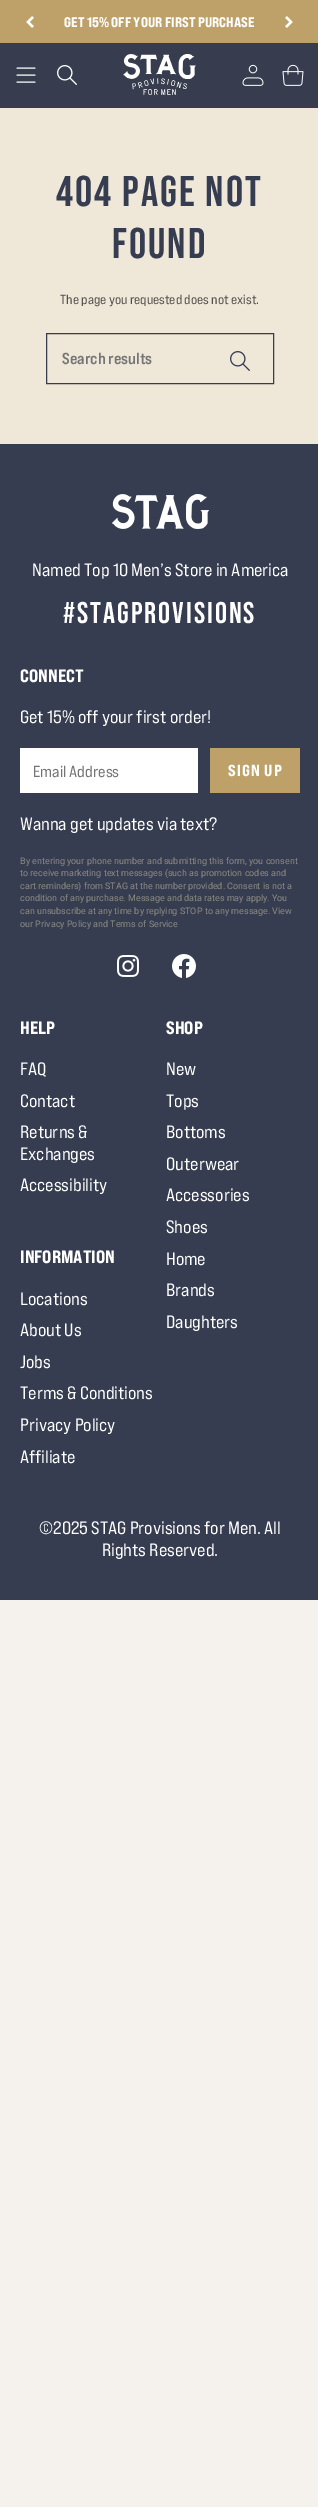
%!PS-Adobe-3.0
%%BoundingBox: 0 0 318 2507
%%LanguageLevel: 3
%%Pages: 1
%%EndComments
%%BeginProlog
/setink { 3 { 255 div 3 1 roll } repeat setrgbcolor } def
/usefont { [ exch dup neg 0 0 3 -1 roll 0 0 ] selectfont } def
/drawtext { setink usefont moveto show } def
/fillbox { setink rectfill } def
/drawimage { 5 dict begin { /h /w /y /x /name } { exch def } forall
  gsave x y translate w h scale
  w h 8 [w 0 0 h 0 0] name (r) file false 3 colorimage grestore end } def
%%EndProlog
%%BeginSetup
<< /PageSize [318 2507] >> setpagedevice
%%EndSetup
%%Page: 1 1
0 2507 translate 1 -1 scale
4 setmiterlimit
0 0 318 2507 245 242 237 fillbox
0 108 318 336 239 232 216 fillbox
0 0 318 43 190 161 104 fillbox
(assets/img1.rgb) 26 16 8 12 drawimage
(GET 15% OFF YOUR FIRST PURCHASE) 64 27 /BebasNeue-ExtraBold 14 255 255 255 drawtext
(assets/img2.rgb) 285 16 8 12 drawimage
0 43 318 65 55 61 78 fillbox
255 255 255 setink
1 setlinecap
1 setlinejoin
17 68 moveto 35 68 lineto 17 75 moveto 35 75 lineto 17 82 moveto 35 82 lineto stroke
(assets/img3.rgb) 57 65 20 20 drawimage
(assets/img4.rgb) 123 54 73 41 drawimage
(assets/img5.rgb) 242 64 22 22 drawimage
(assets/img6.rgb) 282 64 22 22 drawimage
/BebasNeue-Bold 43 usefont
54 61 80 setink
56 206 moveto 2 0 (404 PAGE NOT) ashow
112 258 moveto 2 0 (FOUND) ashow
(The page you requested does not exist.) 60 304 /BebasNeue-Regular 13.25 82 78 76 drawtext
54 61 80 setink
0 setlinecap
0 setlinejoin
46.5 333.5 227 50 rectstroke
(Search results) 62 364 /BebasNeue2-Bold 16 117 117 117 drawtext
(assets/img7.rgb) 230 351 20 20 drawimage
0 444 318 1156 54 61 80 fillbox
(assets/img8.rgb) 112 494 97 35 drawimage
(Named Top 10 Men’s Store in America) 32 576 /BebasNeue-Regular 18 255 255 255 drawtext
/BebasNeue-Bold 30 usefont
63 623 moveto 2 0 (#STAGPROVISIONS) ashow
(CONNECT) 20 682 /BebasNeue-ExtraBold 18 255 255 255 drawtext
(Get 15% off your first order!) 20 723 /BebasNeue-Regular 18 255 255 255 drawtext
20 748 178 45 255 255 255 fillbox
(Email Address) 33 777 /BebasNeue-Regular 16 117 117 117 drawtext
210 748 90 45 190 161 104 fillbox
/BebasNeue-ExtraBold 16 usefont
255 255 255 setink
228 776 moveto 1 0 (SIGN UP) ashow
(Wanna get updates via text?) 20 830 /BebasNeue-Regular 18 255 255 255 drawtext
(By entering your phone number and submitting this form, you consent) 20 864 /Roboto-Regular 9 142 140 132 drawtext
(to receive marketing text messages \(such as promotion codes and) 20 876 /Roboto-Regular 9 142 140 132 drawtext
(cart reminders\) from STAG at the number provided. Consent is not a) 20 889 /Roboto-Regular 9 142 140 132 drawtext
(condition of any purchase. Message and data rates may apply. You) 20 901 /Roboto-Regular 9 142 140 132 drawtext
(can unsubscribe at any time by replying STOP to any message. View) 20 914 /Roboto-Regular 9 142 140 132 drawtext
(our Privacy Policy and Terms of Service) 20 927 /Roboto-Regular 9 142 140 132 drawtext
(assets/img9.rgb) 117 955 22 22 drawimage
(assets/img10.rgb) 172 954 24 24 drawimage
(HELP) 20 1034 /BebasNeue-ExtraBold 18 255 255 255 drawtext
(FAQ) 20 1075 /BebasNeue-Regular 18 255 255 255 drawtext
(Contact) 20 1107 /BebasNeue-Regular 18 255 255 255 drawtext
(Returns &) 20 1138 /BebasNeue-Regular 18 255 255 255 drawtext
(Exchanges) 20 1160 /BebasNeue-Regular 18 255 255 255 drawtext
(Accessibility) 20 1191 /BebasNeue-Regular 18 255 255 255 drawtext
(INFORMATION) 20 1263 /BebasNeue-ExtraBold 18 255 255 255 drawtext
(Locations) 20 1305 /BebasNeue-Regular 18 255 255 255 drawtext
(About Us) 20 1336 /BebasNeue-Regular 18 255 255 255 drawtext
(Jobs) 20 1368 /BebasNeue-Regular 18 255 255 255 drawtext
(Terms & Conditions) 20 1399 /BebasNeue-Regular 18 255 255 255 drawtext
(Privacy Policy) 20 1431 /BebasNeue-Regular 18 255 255 255 drawtext
(Affiliate) 20 1463 /BebasNeue-Regular 18 255 255 255 drawtext
(SHOP) 166 1034 /BebasNeue-ExtraBold 18 255 255 255 drawtext
(New) 166 1075 /BebasNeue-Regular 18 255 255 255 drawtext
(Tops) 166 1107 /BebasNeue-Regular 18 255 255 255 drawtext
(Bottoms) 166 1138 /BebasNeue-Regular 18 255 255 255 drawtext
(Outerwear) 166 1170 /BebasNeue-Regular 18 255 255 255 drawtext
(Accessories) 166 1201 /BebasNeue-Regular 18 255 255 255 drawtext
(Shoes) 166 1233 /BebasNeue-Regular 18 255 255 255 drawtext
(Home) 166 1265 /BebasNeue-Regular 18 255 255 255 drawtext
(Brands) 166 1296 /BebasNeue-Regular 18 255 255 255 drawtext
(Daughters) 166 1328 /BebasNeue-Regular 18 255 255 255 drawtext
(©2025 STAG Provisions for Men. All) 39 1534 /BebasNeue-Regular 18 255 255 255 drawtext
(Rights Reserved.) 102 1556 /BebasNeue-Regular 18 255 255 255 drawtext
showpage
%%EOF
